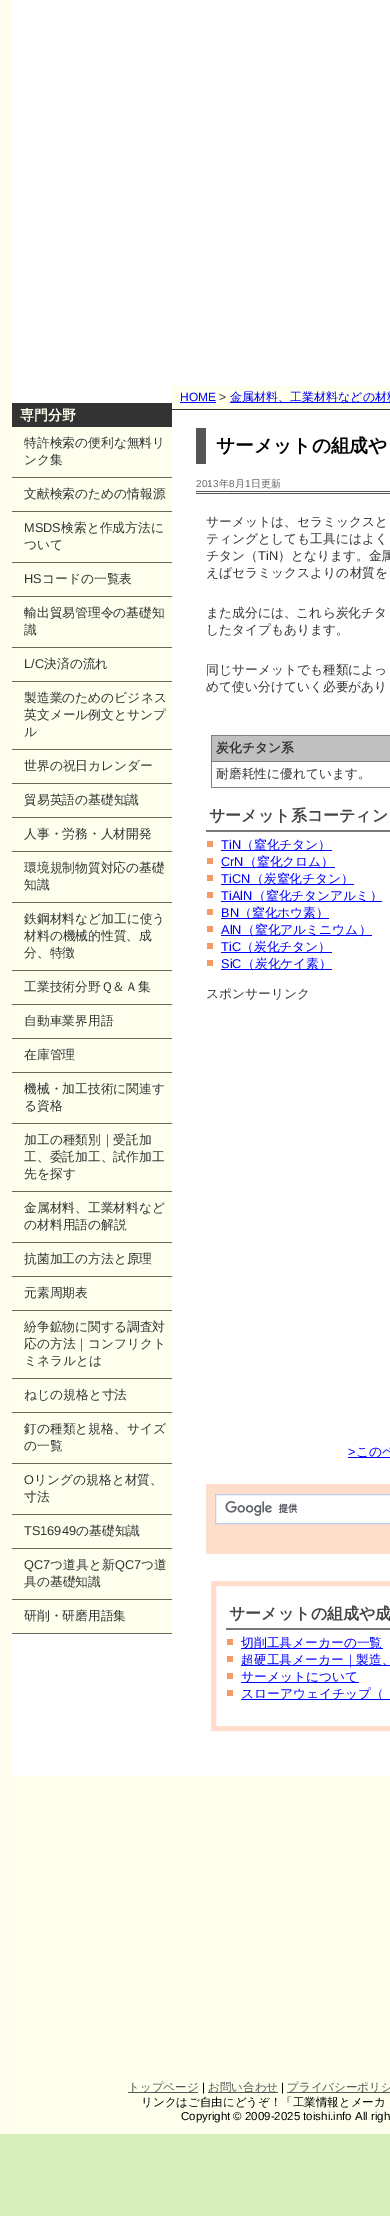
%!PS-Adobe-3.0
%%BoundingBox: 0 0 390 2216
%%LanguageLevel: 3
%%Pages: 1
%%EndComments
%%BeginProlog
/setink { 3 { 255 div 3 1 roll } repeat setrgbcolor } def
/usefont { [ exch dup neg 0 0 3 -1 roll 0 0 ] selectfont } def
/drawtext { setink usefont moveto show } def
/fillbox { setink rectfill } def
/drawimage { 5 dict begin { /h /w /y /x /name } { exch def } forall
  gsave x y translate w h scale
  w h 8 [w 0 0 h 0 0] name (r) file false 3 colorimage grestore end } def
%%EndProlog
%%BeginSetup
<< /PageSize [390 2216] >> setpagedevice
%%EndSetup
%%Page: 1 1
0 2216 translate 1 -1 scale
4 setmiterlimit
0 0 390 2216 214 239 187 fillbox
12 0 378 1776 255 255 255 fillbox
0 0 12 2134 255 254 238 fillbox
12 403 160 24 51 51 51 fillbox
(専門分野) 20 420 /WenQuanYiZenHei-Bold 14 255 255 238 drawtext
12 477 160 1 105 103 85 fillbox
12 427 159 50 255 255 238 fillbox
(特許検索の便利な無料リ) 24 447 /WenQuanYiZenHei-Medium 12.75 51 51 51 drawtext
(ンク集) 24 464 /WenQuanYiZenHei-Medium 12.75 51 51 51 drawtext
12 511 160 1 105 103 85 fillbox
12 478 159 33 255 255 238 fillbox
(文献検索のための情報源) 24 498 /WenQuanYiZenHei-Medium 12.75 51 51 51 drawtext
12 562 160 1 105 103 85 fillbox
12 512 159 50 255 255 238 fillbox
(MSDS) 24 532 /LiberationSans-Regular 12.75 51 51 51 drawtext
(検索と作成方法に) 61 532 /WenQuanYiZenHei-Medium 12.75 51 51 51 drawtext
(ついて) 24 549 /WenQuanYiZenHei-Medium 12.75 51 51 51 drawtext
12 596 160 1 105 103 85 fillbox
12 563 159 33 255 255 238 fillbox
(HS) 24 583 /LiberationSans-Regular 12.75 51 51 51 drawtext
(コードの一覧表) 42 583 /WenQuanYiZenHei-Medium 12.75 51 51 51 drawtext
12 647 160 1 105 103 85 fillbox
12 597 159 50 255 255 238 fillbox
(輸出貿易管理令の基礎知) 24 617 /WenQuanYiZenHei-Medium 12.75 51 51 51 drawtext
(識) 24 634 /WenQuanYiZenHei-Medium 12.75 51 51 51 drawtext
12 681 160 1 105 103 85 fillbox
12 648 159 33 255 255 238 fillbox
(L/C) 24 668 /LiberationSans-Regular 12.75 51 51 51 drawtext
(決済の流れ) 44 668 /WenQuanYiZenHei-Medium 12.75 51 51 51 drawtext
12 749 160 1 105 103 85 fillbox
12 682 159 67 255 255 238 fillbox
(製造業のためのビジネス) 24 702 /WenQuanYiZenHei-Medium 12.75 51 51 51 drawtext
(英文メール例文とサンプ) 24 719 /WenQuanYiZenHei-Medium 12.75 51 51 51 drawtext
(ル) 24 736 /WenQuanYiZenHei-Medium 12.75 51 51 51 drawtext
12 783 160 1 105 103 85 fillbox
12 750 159 33 255 255 238 fillbox
(世界の祝日カレンダー) 24 770 /WenQuanYiZenHei-Medium 12.75 51 51 51 drawtext
12 817 160 1 105 103 85 fillbox
12 784 159 33 255 255 238 fillbox
(貿易英語の基礎知識) 24 804 /WenQuanYiZenHei-Medium 12.75 51 51 51 drawtext
12 851 160 1 105 103 85 fillbox
12 818 159 33 255 255 238 fillbox
(人事・労務・人材開発) 24 838 /WenQuanYiZenHei-Medium 12.75 51 51 51 drawtext
12 902 160 1 105 103 85 fillbox
12 852 159 50 255 255 238 fillbox
(環境規制物質対応の基礎) 24 872 /WenQuanYiZenHei-Medium 12.75 51 51 51 drawtext
(知識) 24 889 /WenQuanYiZenHei-Medium 12.75 51 51 51 drawtext
12 970 160 1 105 103 85 fillbox
12 903 159 67 255 255 238 fillbox
(鉄鋼材料など加工に使う) 24 923 /WenQuanYiZenHei-Medium 12.75 51 51 51 drawtext
(材料の機械的性質、成) 24 940 /WenQuanYiZenHei-Medium 12.75 51 51 51 drawtext
(分、特徴) 24 957 /WenQuanYiZenHei-Medium 12.75 51 51 51 drawtext
12 1004 160 1 105 103 85 fillbox
12 971 159 33 255 255 238 fillbox
(工業技術分野Ｑ＆Ａ集) 24 991 /WenQuanYiZenHei-Medium 12.75 51 51 51 drawtext
12 1038 160 1 105 103 85 fillbox
12 1005 159 33 255 255 238 fillbox
(自動車業界用語) 24 1025 /WenQuanYiZenHei-Medium 12.75 51 51 51 drawtext
12 1072 160 1 105 103 85 fillbox
12 1039 159 33 255 255 238 fillbox
(在庫管理) 24 1059 /WenQuanYiZenHei-Medium 12.75 51 51 51 drawtext
12 1123 160 1 105 103 85 fillbox
12 1073 159 50 255 255 238 fillbox
(機械・加工技術に関連す) 24 1093 /WenQuanYiZenHei-Medium 12.75 51 51 51 drawtext
(る資格) 24 1110 /WenQuanYiZenHei-Medium 12.75 51 51 51 drawtext
12 1191 160 1 105 103 85 fillbox
12 1124 159 67 255 255 238 fillbox
(加工の種類別｜受託加) 24 1144 /WenQuanYiZenHei-Medium 12.75 51 51 51 drawtext
(工、委託加工、試作加工) 24 1161 /WenQuanYiZenHei-Medium 12.75 51 51 51 drawtext
(先を探す) 24 1178 /WenQuanYiZenHei-Medium 12.75 51 51 51 drawtext
12 1242 160 1 105 103 85 fillbox
12 1192 159 50 255 255 238 fillbox
(金属材料、工業材料など) 24 1212 /WenQuanYiZenHei-Medium 12.75 51 51 51 drawtext
(の材料用語の解説) 24 1229 /WenQuanYiZenHei-Medium 12.75 51 51 51 drawtext
12 1276 160 1 105 103 85 fillbox
12 1243 159 33 255 255 238 fillbox
(抗菌加工の方法と原理) 24 1263 /WenQuanYiZenHei-Medium 12.75 51 51 51 drawtext
12 1310 160 1 105 103 85 fillbox
12 1277 159 33 255 255 238 fillbox
(元素周期表) 24 1297 /WenQuanYiZenHei-Medium 12.75 51 51 51 drawtext
12 1378 160 1 105 103 85 fillbox
12 1311 159 67 255 255 238 fillbox
(紛争鉱物に関する調査対) 24 1331 /WenQuanYiZenHei-Medium 12.75 51 51 51 drawtext
(応の方法｜コンフリクト) 24 1348 /WenQuanYiZenHei-Medium 12.75 51 51 51 drawtext
(ミネラルとは) 24 1365 /WenQuanYiZenHei-Medium 12.75 51 51 51 drawtext
12 1412 160 1 105 103 85 fillbox
12 1379 159 33 255 255 238 fillbox
(ねじの規格と寸法) 24 1399 /WenQuanYiZenHei-Medium 12.75 51 51 51 drawtext
12 1463 160 1 105 103 85 fillbox
12 1413 159 50 255 255 238 fillbox
(釘の種類と規格、サイズ) 24 1433 /WenQuanYiZenHei-Medium 12.75 51 51 51 drawtext
(の一覧) 24 1450 /WenQuanYiZenHei-Medium 12.75 51 51 51 drawtext
12 1514 160 1 105 103 85 fillbox
12 1464 159 50 255 255 238 fillbox
(O) 24 1484 /LiberationSans-Regular 12.75 51 51 51 drawtext
(リングの規格と材質、) 34 1484 /WenQuanYiZenHei-Medium 12.75 51 51 51 drawtext
(寸法) 24 1501 /WenQuanYiZenHei-Medium 12.75 51 51 51 drawtext
12 1548 160 1 105 103 85 fillbox
12 1515 159 33 255 255 238 fillbox
(TS16949) 24 1535 /LiberationSans-Regular 12.75 51 51 51 drawtext
(の基礎知識) 76 1535 /WenQuanYiZenHei-Medium 12.75 51 51 51 drawtext
12 1599 160 1 105 103 85 fillbox
12 1549 159 50 255 255 238 fillbox
(QC7) 24 1569 /LiberationSans-Regular 12.75 51 51 51 drawtext
(つ道具と新) 50 1569 /WenQuanYiZenHei-Medium 12.75 51 51 51 drawtext
(QC7) 115 1569 /LiberationSans-Regular 12.75 51 51 51 drawtext
(つ道) 141 1569 /WenQuanYiZenHei-Medium 12.75 51 51 51 drawtext
(具の基礎知識) 24 1586 /WenQuanYiZenHei-Medium 12.75 51 51 51 drawtext
12 1633 160 1 105 103 85 fillbox
12 1600 159 33 255 255 238 fillbox
(研削・研磨用語集) 24 1620 /WenQuanYiZenHei-Medium 12.75 51 51 51 drawtext
172 386 218 23 255 255 238 fillbox
172 409 218 1 51 51 51 fillbox
(HOME) 180 401 /LiberationSans-Regular 12 0 0 255 drawtext
180 402 36 1 0 0 255 fillbox
(>) 219 401 /LiberationSans-Regular 12 51 51 51 drawtext
230 402 160 1 0 0 255 fillbox
(金属材料、工業材料などの材料) 230 401 /WenQuanYiZenHei-Medium 12 0 0 255 drawtext
196 428 10 36 85 85 85 fillbox
(サーメットの組成や) 216 452 /WenQuanYiZenHei-Bold 18.75 0 0 0 drawtext
196 491 194 1 85 85 85 fillbox
196 493 194 1 85 85 85 fillbox
(2013) 196 487 /LiberationSans-Regular 10 102 102 102 drawtext
(年) 219 487 /WenQuanYiZenHei-Medium 10 102 102 102 drawtext
(8) 229 487 /LiberationSans-Regular 10 102 102 102 drawtext
(月) 235 487 /WenQuanYiZenHei-Medium 10 102 102 102 drawtext
(1) 245 487 /LiberationSans-Regular 10 102 102 102 drawtext
(日更新) 251 487 /WenQuanYiZenHei-Medium 10 102 102 102 drawtext
(サーメットは、セラミックスと) 206 526 /WenQuanYiZenHei-Medium 12.75 51 51 51 drawtext
(ティングとしても工具にはよく) 206 543 /WenQuanYiZenHei-Medium 12.75 51 51 51 drawtext
(チタン（) 206 560 /WenQuanYiZenHei-Medium 12.75 51 51 51 drawtext
(TiN) 258 560 /LiberationSans-Regular 12.75 51 51 51 drawtext
(）となります。金属) 278 560 /WenQuanYiZenHei-Medium 12.75 51 51 51 drawtext
(えばセラミックスよりの材質を) 206 577 /WenQuanYiZenHei-Medium 12.75 51 51 51 drawtext
(また成分には、これら炭化チタ) 206 617 /WenQuanYiZenHei-Medium 12.75 51 51 51 drawtext
(したタイプもあります。) 206 634 /WenQuanYiZenHei-Medium 12.75 51 51 51 drawtext
(同じサーメットでも種類によっ) 206 674 /WenQuanYiZenHei-Medium 12.75 51 51 51 drawtext
(めて使い分けていく必要があり) 206 691 /WenQuanYiZenHei-Medium 12.75 51 51 51 drawtext
212 736 178 25 192 192 192 fillbox
211 735 179 1 128 128 128 fillbox
211 761 179 1 128 128 128 fillbox
211 787 179 1 128 128 128 fillbox
211 761 1 27 128 128 128 fillbox
211 735 1 27 128 128 128 fillbox
(炭化チタン系) 216 752 /WenQuanYiZenHei-Bold 12.75 51 51 51 drawtext
(耐磨耗性に優れています。) 216 778 /WenQuanYiZenHei-Medium 12.75 51 51 51 drawtext
206 830 184 2 119 119 119 fillbox
(サーメット系コーティン) 209 821 /WenQuanYiZenHei-Bold 16 68 68 68 drawtext
207 841 6 6 244 154 102 fillbox
(TiN) 221 849 /LiberationSans-Regular 12.75 0 0 255 drawtext
221 850 111 1 0 0 255 fillbox
(（窒化チタン）) 241 849 /WenQuanYiZenHei-Medium 12.75 0 0 255 drawtext
207 858 6 6 244 154 102 fillbox
(CrN) 221 866 /LiberationSans-Regular 12.75 0 0 255 drawtext
221 867 114 1 0 0 255 fillbox
(（窒化クロム）) 244 866 /WenQuanYiZenHei-Medium 12.75 0 0 255 drawtext
207 875 6 6 244 154 102 fillbox
(TiCN) 221 883 /LiberationSans-Regular 12.75 0 0 255 drawtext
221 884 133 1 0 0 255 fillbox
(（炭窒化チタン）) 251 883 /WenQuanYiZenHei-Medium 12.75 0 0 255 drawtext
207 892 6 6 244 154 102 fillbox
(TiAlN) 221 900 /LiberationSans-Regular 12.75 0 0 255 drawtext
221 901 161 1 0 0 255 fillbox
(（窒化チタンアルミ）) 253 900 /WenQuanYiZenHei-Medium 12.75 0 0 255 drawtext
207 909 6 6 244 154 102 fillbox
(BN) 221 917 /LiberationSans-Regular 12.75 0 0 255 drawtext
221 918 108 1 0 0 255 fillbox
(（窒化ホウ素）) 239 917 /WenQuanYiZenHei-Medium 12.75 0 0 255 drawtext
207 926 6 6 244 154 102 fillbox
(AlN) 221 934 /LiberationSans-Regular 12.75 0 0 255 drawtext
221 935 151 1 0 0 255 fillbox
(（窒化アルミニウム）) 242 934 /WenQuanYiZenHei-Medium 12.75 0 0 255 drawtext
207 943 6 6 244 154 102 fillbox
(TiC) 221 951 /LiberationSans-Regular 12.75 0 0 255 drawtext
221 952 111 1 0 0 255 fillbox
(（炭化チタン）) 241 951 /WenQuanYiZenHei-Medium 12.75 0 0 255 drawtext
207 960 6 6 244 154 102 fillbox
(SiC) 221 968 /LiberationSans-Regular 12.75 0 0 255 drawtext
221 969 111 1 0 0 255 fillbox
(（炭化ケイ素）) 242 968 /WenQuanYiZenHei-Medium 12.75 0 0 255 drawtext
(スポンサーリンク) 206 998 /WenQuanYiZenHei-Medium 12.75 51 51 51 drawtext
(>) 348 1456 /LiberationSans-Regular 12.75 0 0 255 drawtext
348 1457 42 1 0 0 255 fillbox
(このペ) 356 1456 /WenQuanYiZenHei-Medium 12.75 0 0 255 drawtext
206 1484 184 70 255 223 203 fillbox
255 255 255 setink
215.5 1494.5 moveto 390.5 1494.5 lineto 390.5 1523.5 lineto 215.5 1523.5 lineto closepath gsave fill grestore
188 205 240 setink
stroke
(assets/img1.rgb) 225 1501 73 15 drawimage
255 223 203 setink
5 setlinewidth
213.5 1583.5 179 145 rectstroke
226 1628 164 2 119 119 119 fillbox
(サーメットの組成や成) 229 1619 /WenQuanYiZenHei-Bold 16 68 68 68 drawtext
227 1639 6 6 244 154 102 fillbox
241 1648 142 1 0 0 255 fillbox
(切削工具メーカーの一覧) 241 1647 /WenQuanYiZenHei-Medium 12.75 0 0 255 drawtext
227 1656 6 6 244 154 102 fillbox
241 1665 149 1 0 0 255 fillbox
(超硬工具メーカー｜製造、) 241 1664 /WenQuanYiZenHei-Medium 12.75 0 0 255 drawtext
227 1673 6 6 244 154 102 fillbox
241 1682 118 1 0 0 255 fillbox
(サーメットについて) 241 1681 /WenQuanYiZenHei-Medium 12.75 0 0 255 drawtext
227 1690 6 6 244 154 102 fillbox
241 1699 149 1 0 0 255 fillbox
(スローアウェイチップ（) 241 1698 /WenQuanYiZenHei-Medium 12.75 0 0 255 drawtext
12 1776 378 358 255 255 238 fillbox
128 2092 70 1 85 85 85 fillbox
(トップページ) 128 2091 /WenQuanYiZenHei-Medium 11.5 85 85 85 drawtext
(|) 202 2091 /LiberationSans-Regular 11.5 0 0 0 drawtext
208 2092 70 1 85 85 85 fillbox
(お問い合わせ) 208 2091 /WenQuanYiZenHei-Medium 11.5 85 85 85 drawtext
(|) 281 2091 /LiberationSans-Regular 11.5 0 0 0 drawtext
287 2092 103 1 85 85 85 fillbox
(プライバシーポリシ) 287 2091 /WenQuanYiZenHei-Medium 11.5 85 85 85 drawtext
(リンクはご自由にどうぞ！「工業情報とメーカ) 141 2106 /WenQuanYiZenHei-Medium 11.5 0 0 0 drawtext
(Copyright © 2009-2025 toishi.info All righ) 181 2120 /LiberationSans-Regular 11.5 0 0 0 drawtext
showpage
%%EOF
